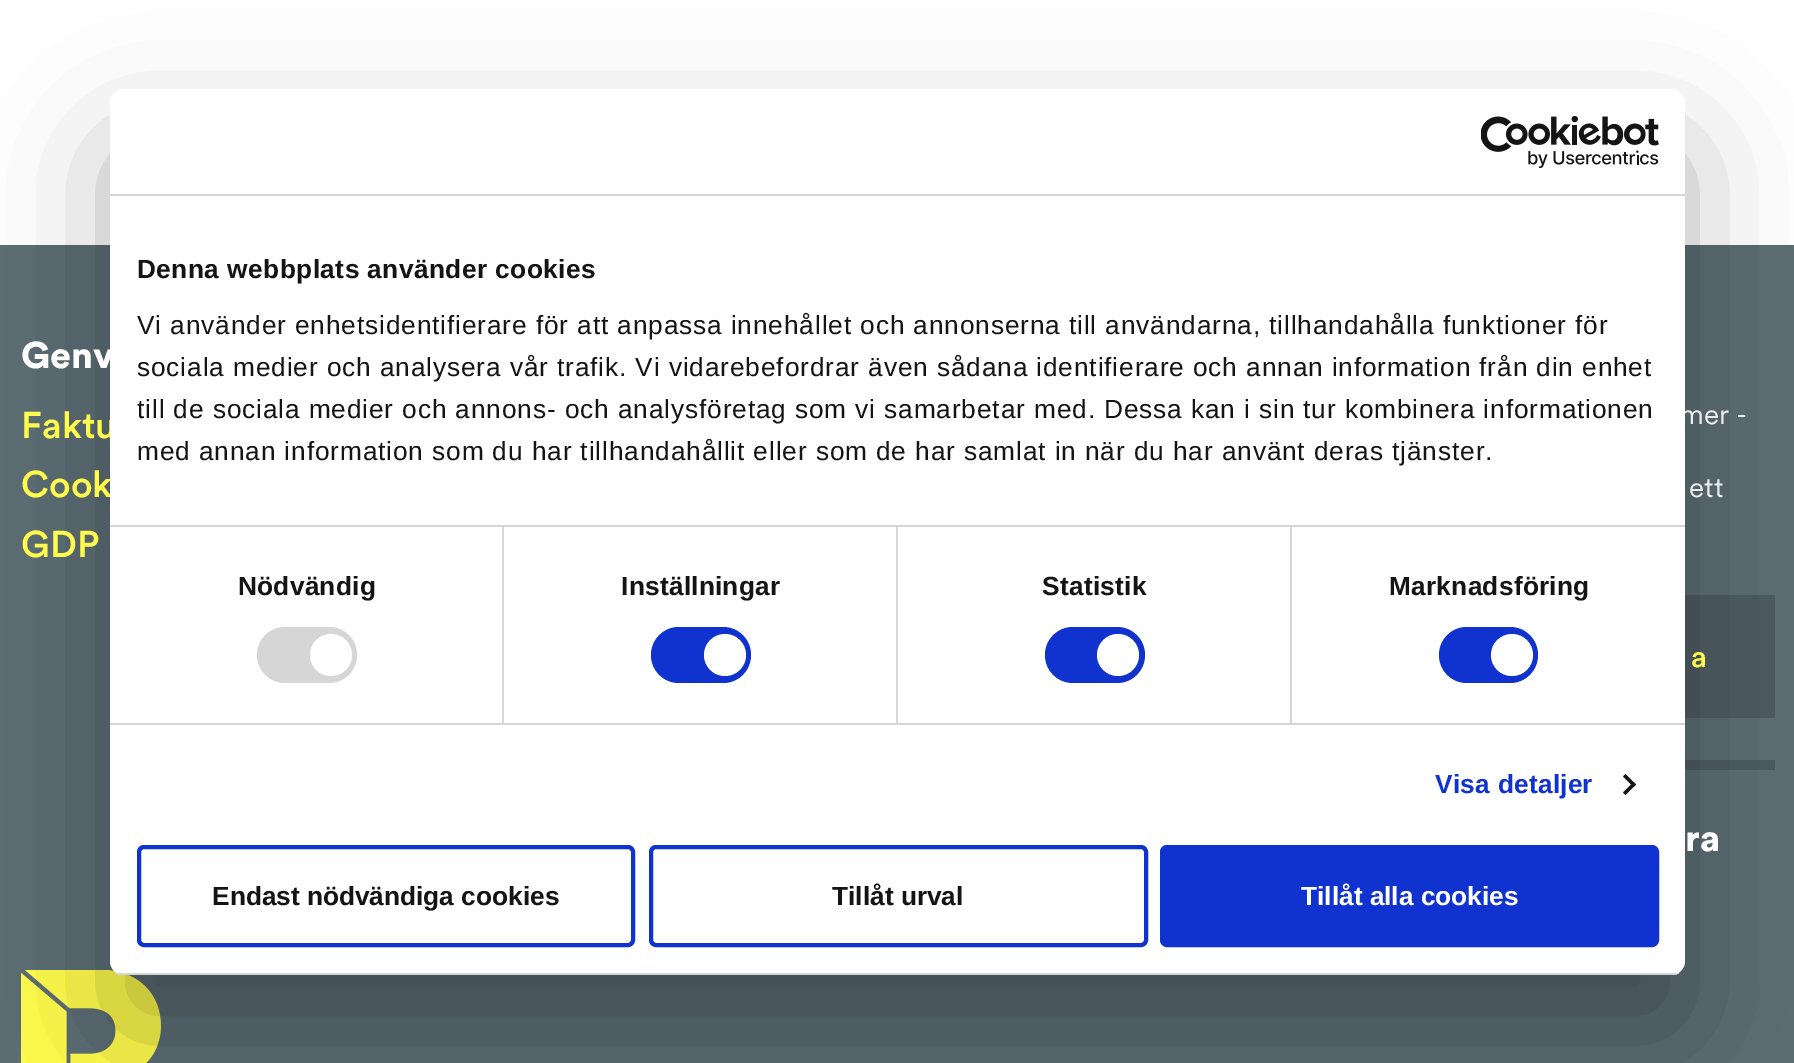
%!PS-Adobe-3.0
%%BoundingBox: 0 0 1794 1063
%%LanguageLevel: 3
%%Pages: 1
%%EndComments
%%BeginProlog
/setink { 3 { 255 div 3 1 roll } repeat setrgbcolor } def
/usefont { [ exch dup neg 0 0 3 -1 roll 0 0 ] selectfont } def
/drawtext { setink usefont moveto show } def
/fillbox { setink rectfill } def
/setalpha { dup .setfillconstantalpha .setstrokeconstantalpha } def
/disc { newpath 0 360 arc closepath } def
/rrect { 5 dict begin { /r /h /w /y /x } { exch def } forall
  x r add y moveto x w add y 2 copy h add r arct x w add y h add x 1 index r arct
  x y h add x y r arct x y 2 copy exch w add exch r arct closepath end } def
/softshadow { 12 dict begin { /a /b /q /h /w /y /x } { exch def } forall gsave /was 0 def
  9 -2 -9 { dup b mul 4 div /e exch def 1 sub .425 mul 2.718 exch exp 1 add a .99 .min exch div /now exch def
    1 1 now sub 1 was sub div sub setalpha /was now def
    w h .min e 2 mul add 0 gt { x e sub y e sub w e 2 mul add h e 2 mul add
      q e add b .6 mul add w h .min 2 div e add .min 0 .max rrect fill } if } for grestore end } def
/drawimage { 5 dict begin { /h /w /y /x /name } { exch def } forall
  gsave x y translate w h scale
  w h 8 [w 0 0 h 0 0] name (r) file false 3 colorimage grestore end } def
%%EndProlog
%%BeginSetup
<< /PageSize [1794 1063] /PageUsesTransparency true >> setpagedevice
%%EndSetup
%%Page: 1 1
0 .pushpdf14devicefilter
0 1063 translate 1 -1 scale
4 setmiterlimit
0 0 1794 1063 255 255 255 fillbox
0 245 1794 818 92 109 116 fillbox
1685 595 90 123 78 92 98 fillbox
1685 760 90 10 78 92 98 fillbox
(assets/img2.rgb) 21 970 140 93 drawimage
0 0 0 setink
110 145 1575 886 14 59.5 0.3 softshadow
(Faktu) 21 438 /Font-Medium 37 255 252 77 drawtext
(Cook) 21 497 /Font-Medium 37 255 252 77 drawtext
(mer -) 1680 424 /Font-Regular 28 234 236 237 drawtext
255 255 255 setink
110 89 1575 886 14 rrect fill
110 194 1575 2 214 214 214 fillbox
(assets/img1.rgb) 1481 116 178 52 drawimage
110 525 1575 2 214 214 214 fillbox
/LiberationSans-Bold 26.25 usefont
20 20 20 setink
137 278 moveto 0.45 0 (Denna webbplats använder cookies) ashow
/LiberationSans-Regular 26.25 usefont
137 334 moveto 0.88 0 (Vi använder enhetsidentifierare för att anpassa innehållet och annonserna till användarna, tillhandahålla funktioner för) ashow
137 376 moveto 0.88 0 (sociala medier och analysera vår trafik. Vi vidarebefordrar även sådana identifierare och annan information från din enhet) ashow
137 418 moveto 0.88 0 (till de sociala medier och annons- och analysföretag som vi samarbetar med. Dessa kan i sin tur kombinera informationen) ashow
137 460 moveto 0.88 0 (med annan information som du har tillhandahållit eller som de har samlat in när du har använt deras tjänster.) ashow
110 723 1575 2 214 214 214 fillbox
502 527 2 196 214 214 214 fillbox
/LiberationSans-Bold 26.25 usefont
20 20 20 setink
238 595 moveto 0.25 0 (Nödvändig) ashow
214 214 214 setink
257 627 100 56 28 rrect fill
255 255 255 setink
331 655 21 disc fill
896 527 2 196 214 214 214 fillbox
20 20 20 setink
621 595 moveto 0.25 0 (Inställningar) ashow
16 50 207 setink
651 627 100 56 28 rrect fill
255 255 255 setink
725 655 21 disc fill
1290 527 2 196 214 214 214 fillbox
20 20 20 setink
1042 595 moveto 0.25 0 (Statistik) ashow
16 50 207 setink
1045 627 100 56 28 rrect fill
255 255 255 setink
1118 655 21 disc fill
20 20 20 setink
1389 595 moveto 0.25 0 (Marknadsföring) ashow
16 50 207 setink
1439 627 99 56 28 rrect fill
255 255 255 setink
1512 655 21 disc fill
16 50 207 setink
1435 793 moveto 0.25 0 (Visa detaljer) ashow
20 20 20 setink
1625.5 774 moveto 1636 784.5 lineto 1633.5 787 lineto 1623 776.5 lineto closepath fill
1633.5 782 moveto 1636 784.5 lineto 1625.5 795 lineto 1623 792.5 lineto closepath fill
gsave
110 89 1575 886 14 rrect clip newpath
110 973 1575 2 214 214 214 fillbox
grestore
16 50 207 setink
4 setlinewidth
139 847 494 98 5 rrect stroke
(Endast nödvändiga cookies) 212 905 /LiberationSans-Bold 26.25 20 20 20 drawtext
16 50 207 setink
651 847 495 98 5 rrect stroke
(Tillåt urval) 832 905 /LiberationSans-Bold 26.25 20 20 20 drawtext
16 50 207 setink
1162 847 495 98 5 rrect gsave fill grestore
stroke
(Tillåt alla cookies) 1301 905 /LiberationSans-Bold 26.25 255 255 255 drawtext
(Genv) 21 368 /Font-Black 37 255 255 255 drawtext
(GDP) 21 557 /Font-Medium 37 255 252 77 drawtext
(ett) 1689 497 /Font-Regular 28 234 236 237 drawtext
(a) 1691 667 /Font-Medium 30 255 252 77 drawtext
(ra) 1685 851 /Font-Black 37 255 255 255 drawtext
.poppdf14devicefilter showpage
%%EOF
